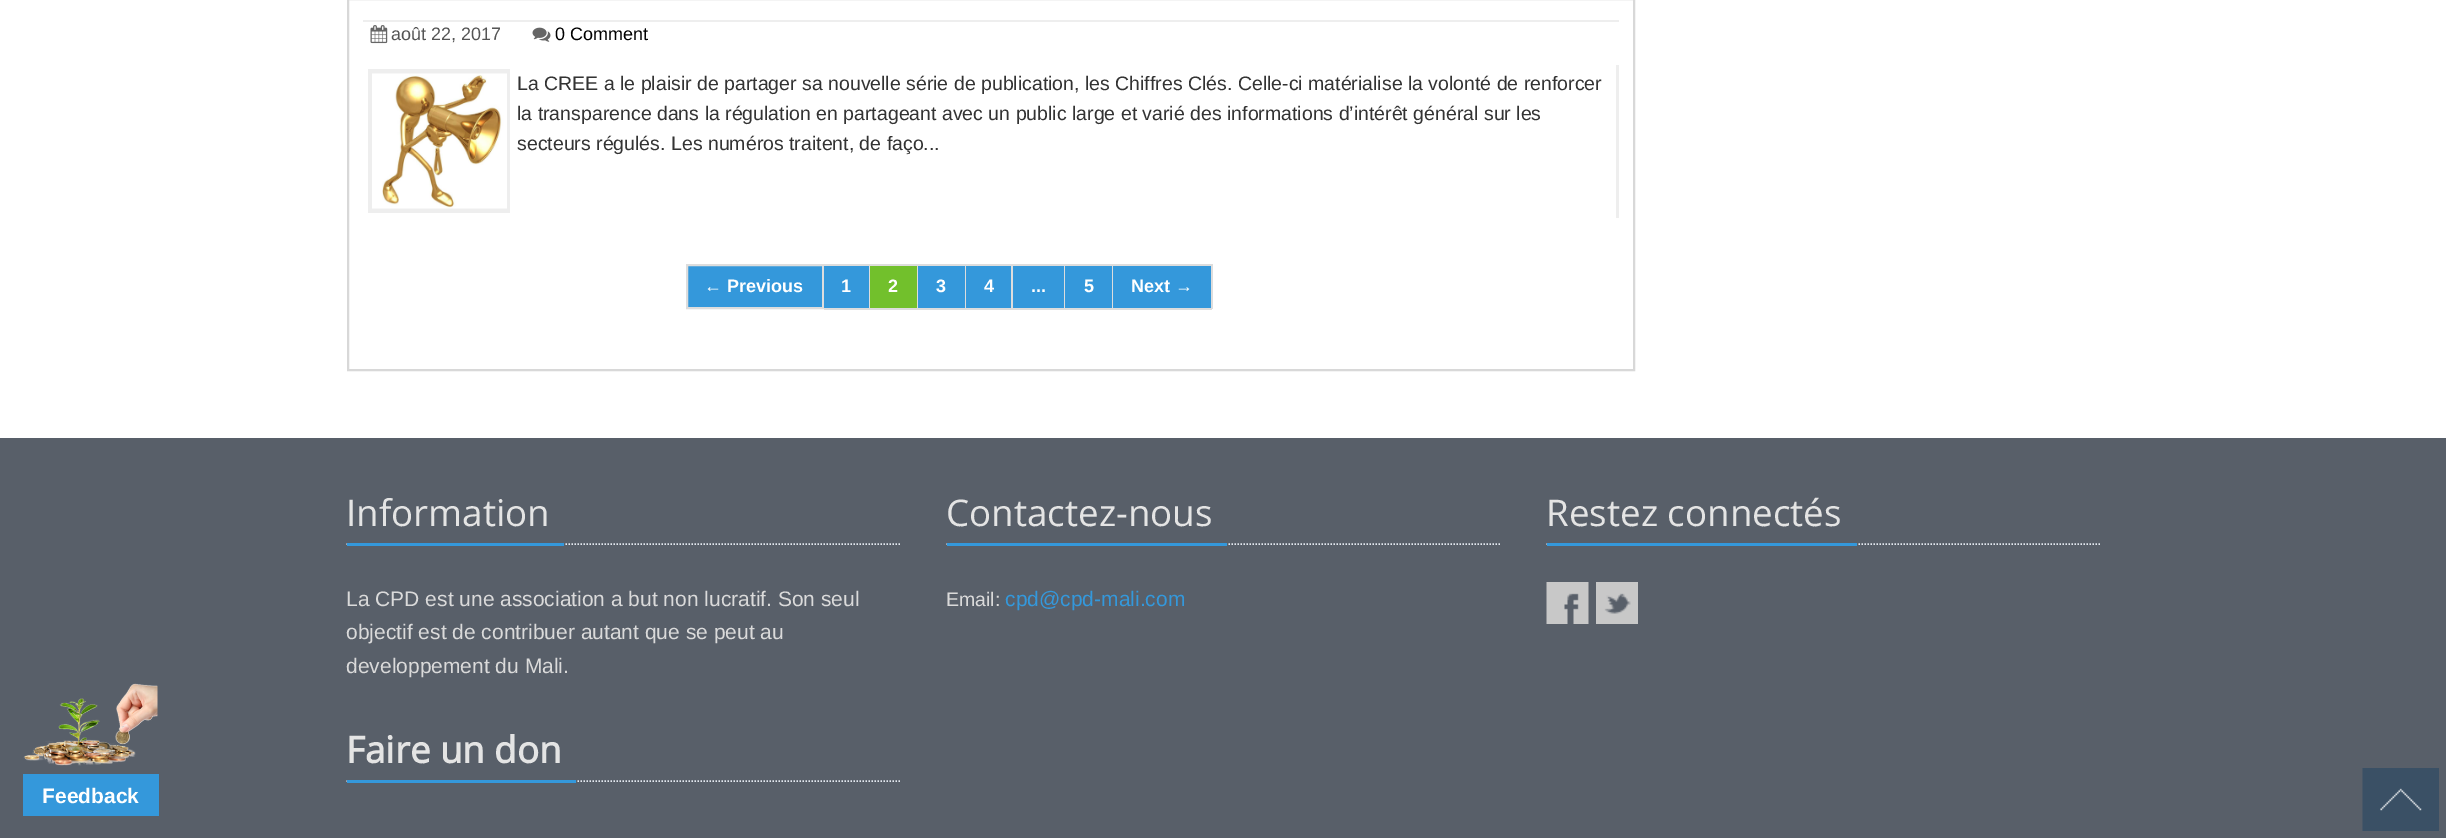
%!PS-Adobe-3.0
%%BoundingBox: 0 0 2446 838
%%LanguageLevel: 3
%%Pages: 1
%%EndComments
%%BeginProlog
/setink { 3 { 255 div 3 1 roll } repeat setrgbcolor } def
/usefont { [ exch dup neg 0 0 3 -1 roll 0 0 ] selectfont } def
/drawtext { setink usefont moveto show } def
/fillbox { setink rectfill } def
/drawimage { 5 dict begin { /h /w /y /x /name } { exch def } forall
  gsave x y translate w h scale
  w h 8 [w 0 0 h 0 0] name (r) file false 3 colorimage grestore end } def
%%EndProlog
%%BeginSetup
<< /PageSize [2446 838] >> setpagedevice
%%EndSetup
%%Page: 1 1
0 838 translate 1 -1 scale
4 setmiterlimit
0 0 2446 838 255 255 255 fillbox
216 216 216 setink
2 setlinewidth
348 -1 1286 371 rectstroke
363 20 1256 2 238 238 238 fillbox
(assets/img1.rgb) 370 25 18 19 drawimage
(août 22, 2017) 391 40 /LiberationSans-Regular 18 85 85 85 drawtext
(assets/img2.rgb) 532 27 19 15 drawimage
(0 Comment) 555 40 /LiberationSans-Regular 18 0 0 0 drawtext
1616 65 3 153 238 238 238 fillbox
gsave
368 69 142 144 rectclip
5 setlinewidth
370.5 71.5 139 139 rectstroke
grestore
(assets/img3.rgb) 372 73 135 136 drawimage
(La CREE a le plaisir de partager sa nouvelle série de publication, les Chiffres Clés. Celle-ci matérialise la volonté de renforcer) 517 90 /LiberationSans-Regular 19.5 51 51 51 drawtext
(la transparence dans la régulation en partageant avec un public large et varié des informations d’intérêt général sur les) 517 120 /LiberationSans-Regular 19.5 51 51 51 drawtext
(secteurs régulés. Les numéros traitent, de faço...) 517 150 /LiberationSans-Regular 19.5 51 51 51 drawtext
52 152 219 setink
687 265 moveto 823 265 lineto 823 308 lineto 687 308 lineto closepath gsave fill grestore
221 221 221 setink
stroke
(← Previous) 704 292 /LiberationSans-Bold 18 255 255 255 drawtext
824 266 45 42 52 152 219 fillbox
824 264 388 2 221 221 221 fillbox
869 264 1 45 221 221 221 fillbox
824 308 46 2 221 221 221 fillbox
(1) 841 292 /LiberationSans-Bold 18 255 255 255 drawtext
870 266 47 42 114 192 44 fillbox
917 264 1 45 221 221 221 fillbox
870 308 48 2 221 221 221 fillbox
(2) 888 292 /LiberationSans-Bold 18 255 255 255 drawtext
918 266 47 42 52 152 219 fillbox
965 264 1 45 221 221 221 fillbox
918 308 48 2 221 221 221 fillbox
(3) 936 292 /LiberationSans-Bold 18 255 255 255 drawtext
966 266 45 42 52 152 219 fillbox
1011 264 2 45 221 221 221 fillbox
966 308 47 2 221 221 221 fillbox
(4) 984 292 /LiberationSans-Bold 18 255 255 255 drawtext
1013 266 51 42 52 152 219 fillbox
1064 264 1 45 221 221 221 fillbox
1013 308 52 2 221 221 221 fillbox
(...) 1031 292 /LiberationSans-Bold 18 255 255 255 drawtext
1065 266 47 42 52 152 219 fillbox
1112 264 1 45 221 221 221 fillbox
1065 308 48 2 221 221 221 fillbox
(5) 1084 292 /LiberationSans-Bold 18 255 255 255 drawtext
1113 266 98 42 52 152 219 fillbox
1211 264 2 45 221 221 221 fillbox
1113 308 99 2 221 221 221 fillbox
(Next →) 1131 292 /LiberationSans-Bold 18 255 255 255 drawtext
0 438 2446 400 88 95 105 fillbox
228 233 240 setink
1.5 setlinewidth
[1.5 1.5] 0 setdash
346.5 544 moveto 901.5 544 lineto stroke
347 543 217 3 52 152 219 fillbox
(Information) 346 526 /OpenSans-Regular 36.75 228 228 228 drawtext
(La CPD est une association a but non lucratif. Son seul) 346 606 /LiberationSans-Regular 21 218 218 218 drawtext
(objectif est de contribuer autant que se peut au) 346 639 /LiberationSans-Regular 21 218 218 218 drawtext
(developpement du Mali.) 346 673 /LiberationSans-Regular 21 218 218 218 drawtext
228 233 240 setink
346.5 781 moveto 901.5 781 lineto stroke
347 780 229 3 52 152 219 fillbox
(Faire un don) 346 763 /OpenSans-Bold 36.75 228 228 228 drawtext
228 233 240 setink
946.5 544 moveto 1501.5 544 lineto stroke
947 543 280 3 52 152 219 fillbox
(Contactez-nous) 946 526 /OpenSans-Regular 36.75 228 228 228 drawtext
(Email:) 946 606 /LiberationSans-Regular 19.5 218 218 218 drawtext
(cpd@cpd-mali.com) 1005 606 /LiberationSans-Regular 21 52 152 219 drawtext
228 233 240 setink
1546.5 544 moveto 2101.5 544 lineto stroke
1547 543 310 3 52 152 219 fillbox
(Restez connectés) 1546 526 /OpenSans-Regular 36.75 228 228 228 drawtext
(assets/img4.rgb) 1546 582 43 42 drawimage
(assets/img5.rgb) 1596 582 42 42 drawimage
(assets/img6.rgb) 23 683 135 83 drawimage
23 774 136 42 52 152 219 fillbox
(Feedback) 42 803 /LiberationSans-Bold 21 255 255 255 drawtext
(assets/img7.rgb) 2362 768 77 63 drawimage
showpage
%%EOF
